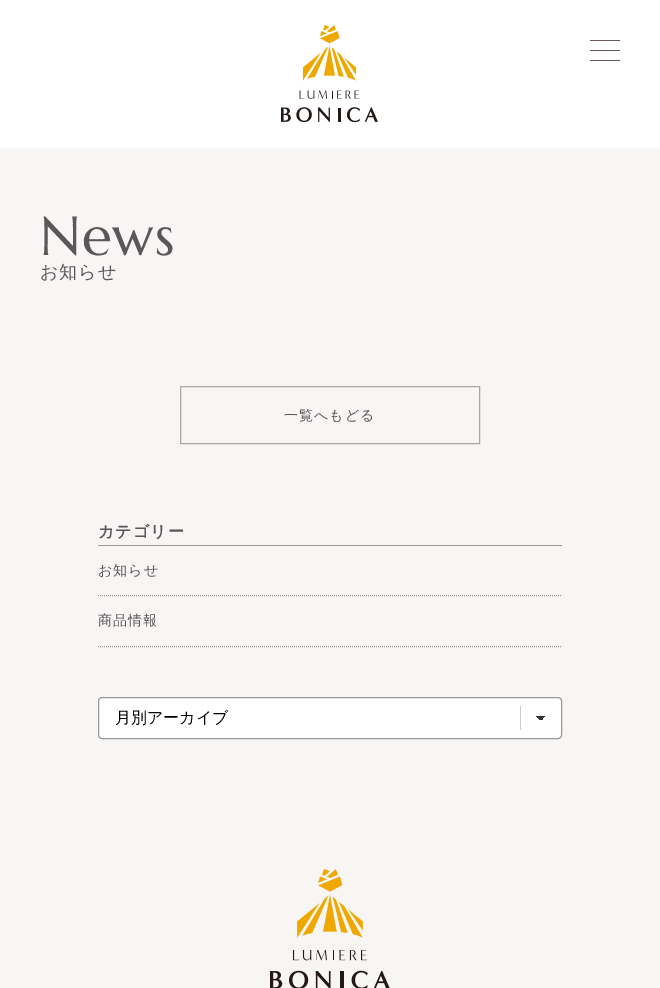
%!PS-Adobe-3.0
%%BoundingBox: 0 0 660 988
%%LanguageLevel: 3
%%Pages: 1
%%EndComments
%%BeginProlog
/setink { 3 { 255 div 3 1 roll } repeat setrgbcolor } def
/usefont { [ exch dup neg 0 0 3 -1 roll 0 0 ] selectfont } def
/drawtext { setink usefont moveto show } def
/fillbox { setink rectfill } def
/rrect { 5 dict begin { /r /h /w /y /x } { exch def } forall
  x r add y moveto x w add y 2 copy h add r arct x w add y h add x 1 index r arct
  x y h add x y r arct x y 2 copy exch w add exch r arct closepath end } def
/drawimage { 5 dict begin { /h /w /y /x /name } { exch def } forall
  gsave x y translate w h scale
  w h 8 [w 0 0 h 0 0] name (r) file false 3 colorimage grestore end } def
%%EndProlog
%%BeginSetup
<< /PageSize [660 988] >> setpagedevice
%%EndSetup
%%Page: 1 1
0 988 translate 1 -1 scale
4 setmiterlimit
0 0 660 988 247 246 245 fillbox
0 0 660 148 255 255 255 fillbox
(assets/img1.rgb) 281 25 97 98 drawimage
590 40 30 1 103 89 82 fillbox
590 50 30 1 103 89 82 fillbox
590 60 30 1 103 89 82 fillbox
/Marcellus-Regular 55 usefont
89 87 87 setink
40 255 moveto 1 0 (News) ashow
/WenQuanYiZenHei-Medium 18 usefont
40 278 moveto 1 0 (お知らせ) ashow
169 168 168 setink
180.5 386.5 299 57 rectstroke
/WenQuanYiZenHei-Medium 14 usefont
89 87 87 setink
284 420 moveto 1 0 (一覧へもどる) ashow
98 545 464 1 153 153 153 fillbox
/WenQuanYiZenHei-Bold 16 usefont
89 87 87 setink
98 537 moveto 1 0 (カテゴリー) ashow
153 153 153 setink
[1 1] 0 setdash
98 595.5 moveto 562 595.5 lineto stroke
/WenQuanYiZenHei-Medium 14 usefont
89 87 87 setink
98 575 moveto 1 0 (お知らせ) ashow
153 153 153 setink
98 646.5 moveto 562 646.5 lineto stroke
89 87 87 setink
98 625 moveto 1 0 (商品情報) ashow
255 255 255 setink
98 697 464 42 4 rrect fill
520 706 1 24 204 204 204 fillbox
gsave 541 716 moveto 546 716 lineto 546 720 lineto 541 720 lineto closepath clip newpath
<< /ShadingType 2 /ColorSpace /DeviceRGB /Coords [541 716 546 721] /Extend [true true] /Function << /FunctionType 3 /Domain [0 1] /Functions [<< /FunctionType 2 /Domain [0 1] /C0 [0.2 0.2 0.2] /C1 [0.2 0.2 0.2] /N 1 >> << /FunctionType 2 /Domain [0 1] /C0 [1 1 1] /C1 [1 1 1] /N 1 >>] /Bounds [0.5] /Encode [0 1 0 1] >> >> shfill grestore
gsave 536 716 moveto 541 716 lineto 541 720 lineto 536 720 lineto closepath clip newpath
<< /ShadingType 2 /ColorSpace /DeviceRGB /Coords [536 721 541 716] /Extend [true true] /Function << /FunctionType 3 /Domain [0 1] /Functions [<< /FunctionType 2 /Domain [0 1] /C0 [1 1 1] /C1 [1 1 1] /N 1 >> << /FunctionType 2 /Domain [0 1] /C0 [0.2 0.2 0.2] /C1 [0.2 0.2 0.2] /N 1 >>] /Bounds [0.5] /Encode [0 1 0 1] >> >> shfill grestore
153 153 153 setink
[] 0 setdash
98.5 697.5 463 41 3.5 rrect stroke
(月別アーカイブ) 115 723 /WenQuanYiZenHei-Medium 16 0 0 0 drawtext
(assets/img2.rgb) 270 869 120 119 drawimage
showpage
%%EOF
